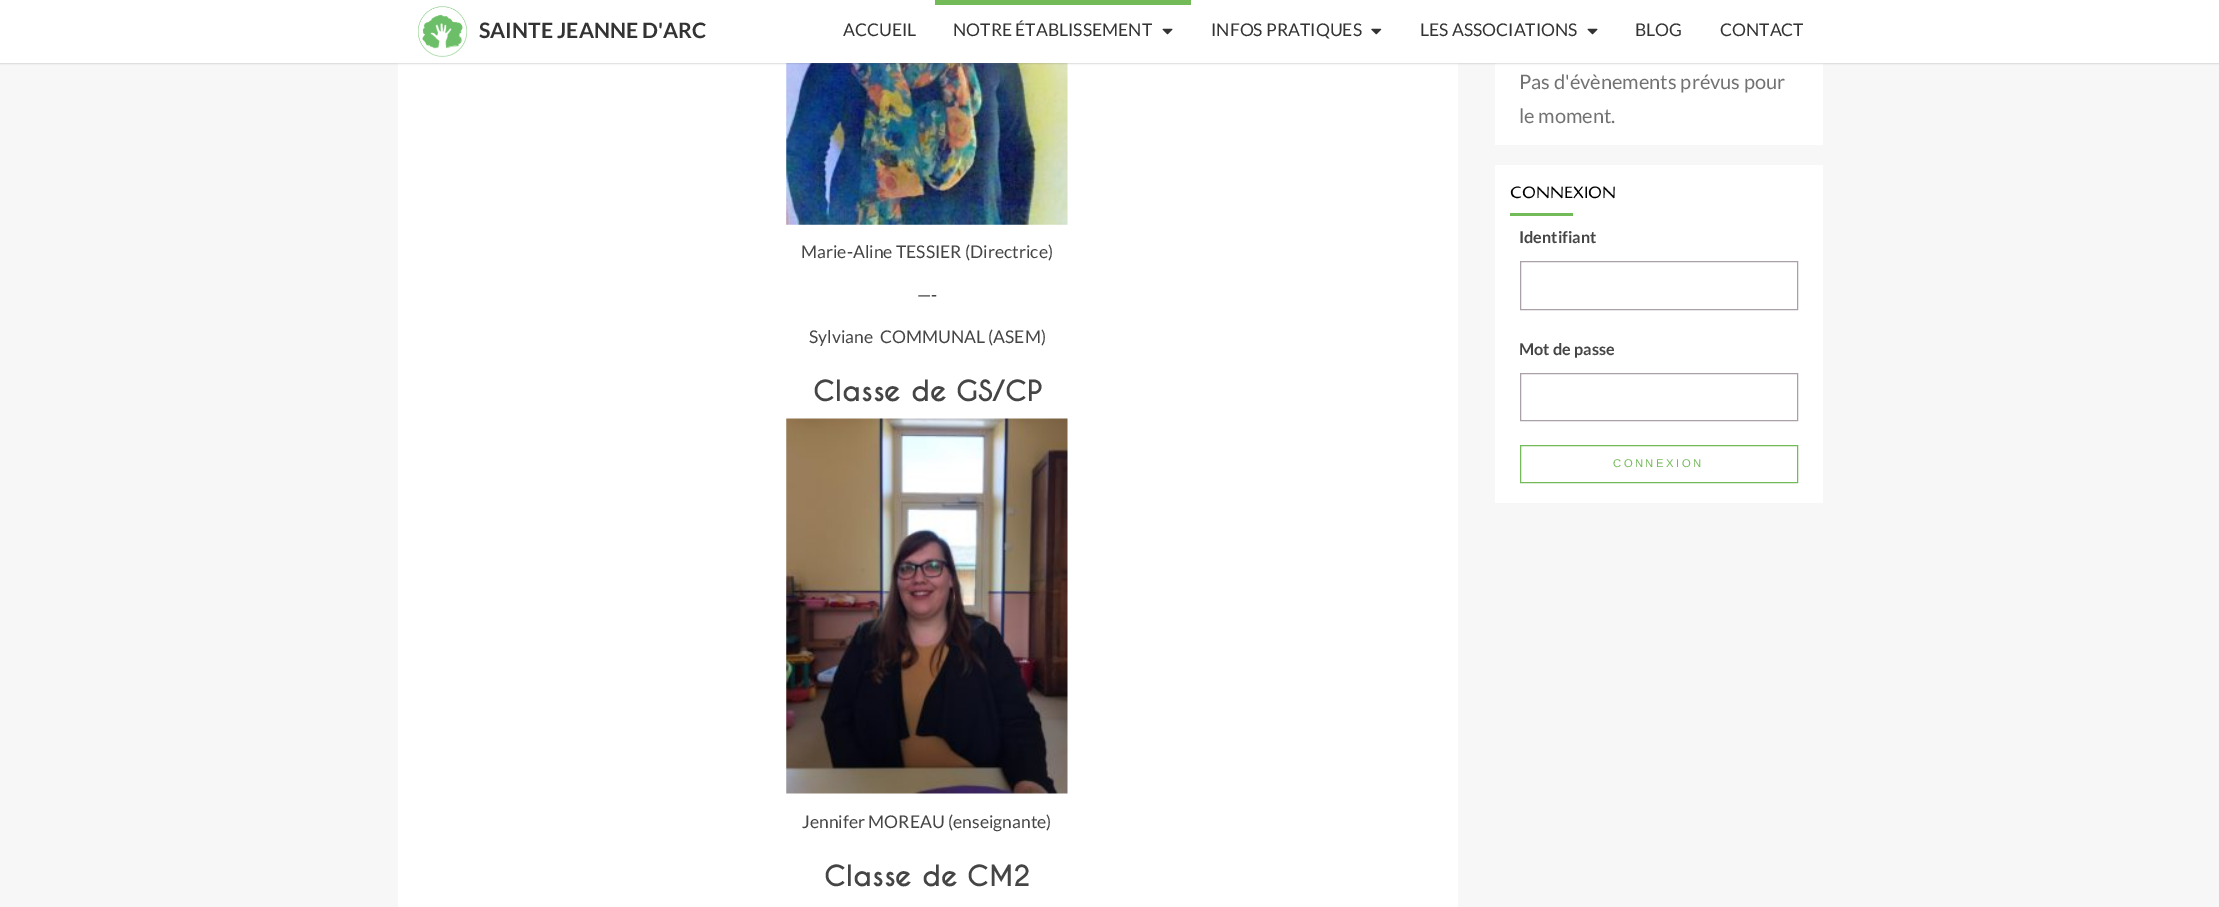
%!PS-Adobe-3.0
%%BoundingBox: 0 0 2219 907
%%LanguageLevel: 3
%%Pages: 1
%%EndComments
%%BeginProlog
/setink { 3 { 255 div 3 1 roll } repeat setrgbcolor } def
/usefont { [ exch dup neg 0 0 3 -1 roll 0 0 ] selectfont } def
/drawtext { setink usefont moveto show } def
/fillbox { setink rectfill } def
/setalpha { dup .setfillconstantalpha .setstrokeconstantalpha } def
/rrect { 5 dict begin { /r /h /w /y /x } { exch def } forall
  x r add y moveto x w add y 2 copy h add r arct x w add y h add x 1 index r arct
  x y h add x y r arct x y 2 copy exch w add exch r arct closepath end } def
/softshadow { 12 dict begin { /a /b /q /h /w /y /x } { exch def } forall gsave /was 0 def
  9 -2 -9 { dup b mul 4 div /e exch def 1 sub .425 mul 2.718 exch exp 1 add a .99 .min exch div /now exch def
    1 1 now sub 1 was sub div sub setalpha /was now def
    w h .min e 2 mul add 0 gt { x e sub y e sub w e 2 mul add h e 2 mul add
      q e add b .6 mul add w h .min 2 div e add .min 0 .max rrect fill } if } for grestore end } def
/drawimage { 5 dict begin { /h /w /y /x /name } { exch def } forall
  gsave x y translate w h scale
  w h 8 [w 0 0 h 0 0] name (r) file false 3 colorimage grestore end } def
%%EndProlog
%%BeginSetup
<< /PageSize [2219 907] /PageUsesTransparency true >> setpagedevice
%%EndSetup
%%Page: 1 1
0 .pushpdf14devicefilter
0 907 translate 1 -1 scale
4 setmiterlimit
0 0 2219 907 247 247 247 fillbox
398 63 1060 844 255 255 255 fillbox
(assets/img4.rgb) 786 63 282 162 drawimage
1495 63 328 82 255 255 255 fillbox
100 100 100 setink
0 1 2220 63 0 0.5 0.2 softshadow
0 0 2219 63 255 255 255 fillbox
(assets/img1.rgb) 418 6 50 51 drawimage
(SAINTE JEANNE D'ARC) 479 38 /Lato-Bold 21.25 51 51 51 drawtext
(ACCUEIL) 843 36 /Lato-Regular 17.5 51 51 51 drawtext
935 0 256 5 115 186 89 fillbox
(NOTRE ÉTABLISSEMENT) 953 36 /Lato-Regular 17.5 51 51 51 drawtext
(assets/img2.rgb) 1162 28 11 7 drawimage
(INFOS PRATIQUES) 1211 36 /Lato-Regular 17.5 51 51 51 drawtext
(assets/img3.rgb) 1371 28 11 7 drawimage
(LES ASSOCIATIONS) 1420 36 /Lato-Regular 17.5 51 51 51 drawtext
(assets/img2.rgb) 1587 28 11 7 drawimage
(BLOG) 1635 36 /Lato-Regular 17.5 51 51 51 drawtext
(CONTACT) 1720 36 /Lato-Regular 17.5 51 51 51 drawtext
(Marie-Aline TESSIER \(Directrice\)) 801 258 /Lato-Regular 17.5 69 69 69 drawtext
(—-) 917 301 /Lato-Regular 17.5 69 69 69 drawtext
(Sylviane  COMMUNAL \(ASEM\)) 809 343 /Lato-Regular 17.5 69 69 69 drawtext
(Classe de GS/CP) 813 401 /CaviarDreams-Bold 27.5 69 69 69 drawtext
(assets/img5.rgb) 786 418 282 376 drawimage
(Jennifer MOREAU \(enseignante\)) 802 828 /Lato-Regular 17.5 69 69 69 drawtext
(Classe de CM2) 824 886 /CaviarDreams-Bold 27.5 69 69 69 drawtext
(Pas d'évènements prévus pour) 1519 89 /Lato-Regular 20 114 114 114 drawtext
(le moment.) 1519 123 /Lato-Regular 20 114 114 114 drawtext
1495 165 328 338 255 255 255 fillbox
(CONNEXION) 1510 198 /Cagliostro-Regular 16.25 0 0 0 drawtext
1510 213 63 3 115 186 89 fillbox
(Identifiant) 1519 243 /Lato-Bold 16.25 69 69 69 drawtext
170 161 168 setink
1520.5 261.5 277 48 rectstroke
(Mot de passe) 1519 355 /Lato-Bold 16.25 69 69 69 drawtext
170 161 168 setink
1520.5 373.5 277 47 rectstroke
115 186 89 setink
1520.5 445.5 277 37 rectstroke
/LiberationSans-Regular 11.25 usefont
1613 467 moveto 2.5 0 (CONNEXION) ashow
.poppdf14devicefilter showpage
%%EOF
